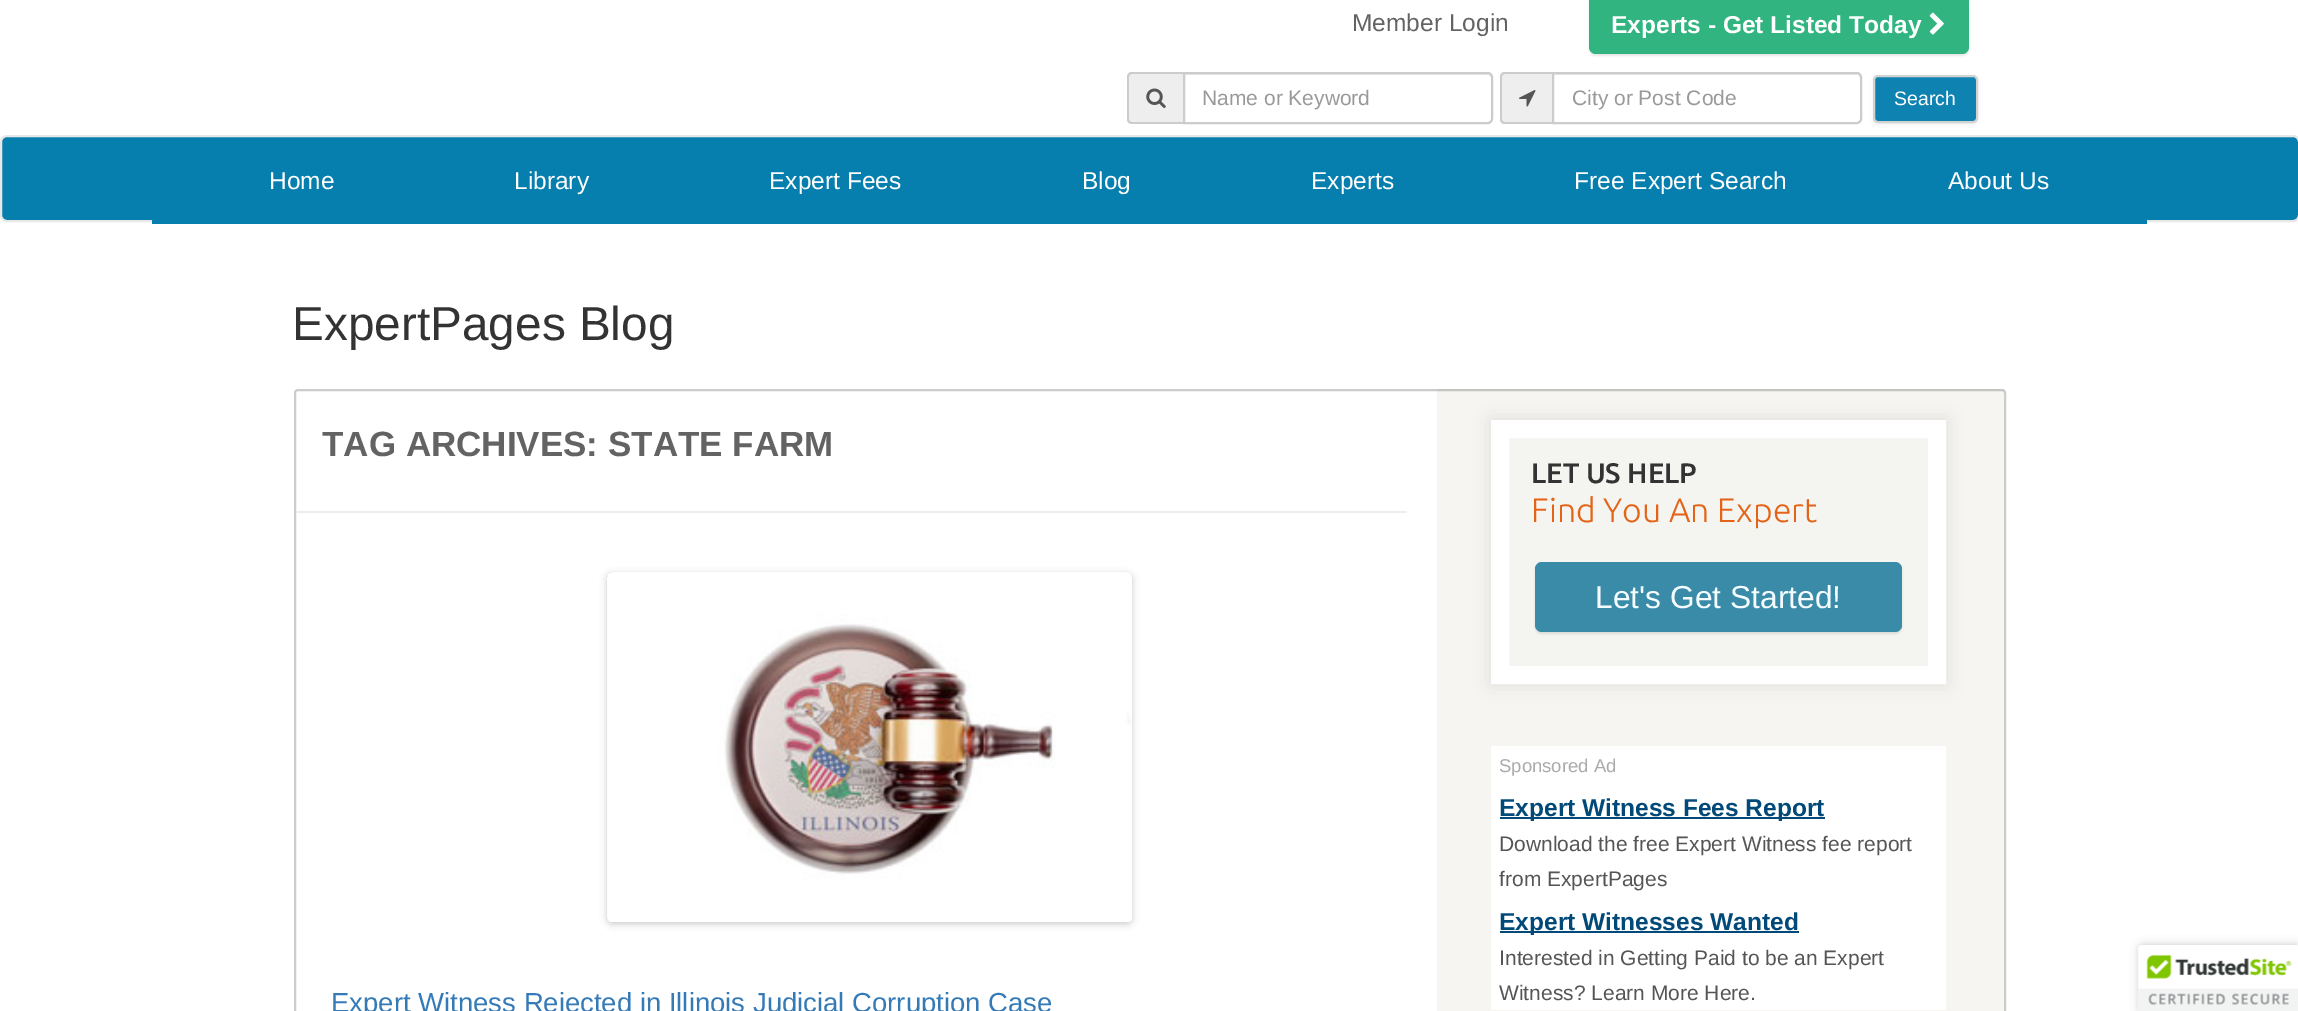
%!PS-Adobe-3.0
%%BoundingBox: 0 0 2298 1011
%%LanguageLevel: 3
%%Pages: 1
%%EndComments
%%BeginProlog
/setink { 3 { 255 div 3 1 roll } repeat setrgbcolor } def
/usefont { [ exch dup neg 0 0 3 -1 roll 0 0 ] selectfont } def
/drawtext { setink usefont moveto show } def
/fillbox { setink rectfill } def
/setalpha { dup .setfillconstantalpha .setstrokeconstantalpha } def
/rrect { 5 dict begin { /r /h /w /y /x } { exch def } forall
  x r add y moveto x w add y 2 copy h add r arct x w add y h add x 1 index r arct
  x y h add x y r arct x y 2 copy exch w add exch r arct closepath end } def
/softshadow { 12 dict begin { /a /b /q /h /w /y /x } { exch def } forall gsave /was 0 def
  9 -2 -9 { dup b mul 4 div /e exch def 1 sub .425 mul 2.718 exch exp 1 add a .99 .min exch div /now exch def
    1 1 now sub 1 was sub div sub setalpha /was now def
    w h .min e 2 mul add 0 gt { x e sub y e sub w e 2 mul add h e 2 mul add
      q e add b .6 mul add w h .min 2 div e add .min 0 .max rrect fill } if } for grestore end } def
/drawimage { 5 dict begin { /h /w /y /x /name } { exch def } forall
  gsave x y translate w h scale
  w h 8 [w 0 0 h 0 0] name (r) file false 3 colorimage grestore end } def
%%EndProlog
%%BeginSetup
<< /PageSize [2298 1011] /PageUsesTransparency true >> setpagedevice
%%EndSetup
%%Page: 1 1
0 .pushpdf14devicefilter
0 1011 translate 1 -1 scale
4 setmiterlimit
0 0 2298 1011 255 255 255 fillbox
(Member Login) 1352 31 /LiberationSans-Regular 24.5 99 99 99 drawtext
0 0 0 setink
1589 -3 380 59 7 1 0.1 softshadow
49 180 127 setink
1589 -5 380 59 7 rrect fill
(Experts - Get Listed Today) 1611 33 /LiberationSans-Bold 24.5 255 255 255 drawtext
(assets/img1.rgb) 1929 12 15 23 drawimage
238 238 238 setink
1132 72 moveto 1183 72 lineto 1183 124 lineto 1132 124 lineto 1129 124 1127 122 1127 119 curveto 1127 77 lineto 1127 74 1129 72 1132 72 curveto closepath fill
204 204 204 setink
1132 72 moveto 1183 72 lineto 1183 124 lineto 1132 124 lineto 1129 124 1127 122 1127 119 curveto 1127 77 lineto 1127 74 1129 72 1132 72 curveto closepath 1132 74 moveto 1183 74 lineto 1183 122 lineto 1132 122 lineto 1130 122 1129 121 1129 119 curveto 1129 77 lineto 1129 75 1130 74 1132 74 curveto closepath eofill
(assets/img2.rgb) 1146 88 20 20 drawimage
236 236 236 setink
1185 75 moveto 1488 75 lineto 1489 75 1491 77 1491 79 curveto 1491 78 lineto 1491 76 1489 74 1487 74 curveto 1185 74 lineto closepath fill
204 204 204 setink
2 setlinewidth
1184 73 moveto 1488 73 lineto 1490 73 1492 75 1492 77 curveto 1492 119 lineto 1492 121 1490 123 1488 123 curveto 1184 123 lineto closepath stroke
(Name or Keyword) 1202 105 /LiberationSans-Regular 21 153 153 153 drawtext
238 238 238 setink
1505 72 moveto 1552 72 lineto 1552 124 lineto 1505 124 lineto 1502 124 1500 122 1500 119 curveto 1500 77 lineto 1500 74 1502 72 1505 72 curveto closepath fill
204 204 204 setink
1505 72 moveto 1552 72 lineto 1552 124 lineto 1505 124 lineto 1502 124 1500 122 1500 119 curveto 1500 77 lineto 1500 74 1502 72 1505 72 curveto closepath 1505 74 moveto 1552 74 lineto 1552 122 lineto 1505 122 lineto 1503 122 1502 121 1502 119 curveto 1502 77 lineto 1502 75 1503 74 1505 74 curveto closepath eofill
(assets/img3.rgb) 1519 90 17 17 drawimage
236 236 236 setink
1554 75 moveto 1857 75 lineto 1859 75 1860 77 1860 79 curveto 1860 78 lineto 1860 76 1858 74 1856 74 curveto 1554 74 lineto closepath fill
204 204 204 setink
1553 73 moveto 1857 73 lineto 1859 73 1861 75 1861 77 curveto 1861 119 lineto 1861 121 1859 123 1857 123 curveto 1553 123 lineto closepath stroke
(City or Post Code) 1572 105 /LiberationSans-Regular 21 153 153 153 drawtext
64 64 64 setink
1873 77 105 47 5 2 0.1 softshadow
14 131 177 setink
1874 76 103 46 4 rrect gsave fill grestore
210 210 210 setink
stroke
(Search) 1894 105 /LiberationSans-Regular 19.5 255 255 255 drawtext
6 127 174 setink
1 136 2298 85 6 rrect gsave fill grestore
231 231 231 setink
stroke
152 220 1995 4 6 127 174 fillbox
(Home) 269 189 /LiberationSans-Regular 24.5 255 255 255 drawtext
(Library) 514 189 /LiberationSans-Regular 24.5 255 255 255 drawtext
(Expert Fees) 769 189 /LiberationSans-Regular 24.5 255 255 255 drawtext
(Blog) 1082 189 /LiberationSans-Regular 24.5 255 255 255 drawtext
(Experts) 1311 189 /LiberationSans-Regular 24.5 255 255 255 drawtext
(Free Expert Search) 1574 189 /LiberationSans-Regular 24.5 255 255 255 drawtext
(About Us) 1948 189 /LiberationSans-Regular 24.5 255 255 255 drawtext
(ExpertPages Blog) 292 340 /LiberationSans-Regular 47.75 51 51 51 drawtext
1437 389 567 622 246 245 241 fillbox
0.2 setalpha
0 0 0 setink
295 390 1710 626 3 rrect stroke
1 setalpha
296 511 1111 2 237 237 237 fillbox
(TAG ARCHIVES: STATE FARM) 322 456 /LiberationSans-Bold 35 99 99 99 drawtext
gsave
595 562 moveto 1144 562 lineto 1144 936 lineto 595 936 lineto closepath 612 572 moveto 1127 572 lineto 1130 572 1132 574 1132 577 curveto 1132 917 lineto 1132 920 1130 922 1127 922 curveto 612 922 lineto 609 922 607 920 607 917 curveto 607 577 lineto 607 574 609 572 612 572 curveto closepath eoclip newpath
0 0 0 setink
607 574 525 350 5 3.5 0.2 softshadow
grestore
(assets/img4.rgb) 607 584 525 338 drawimage
(Expert Witness Rejected in Illinois Judicial Corruption Case) 331 1012 /LiberationSans-Regular 27.5 51 122 183 drawtext
0 0 0 setink
1491 420 455 264 0 9 0.1 softshadow
244 244 241 setink
1500 429 moveto 1937 429 lineto 1937 675 lineto 1500 675 lineto closepath gsave fill grestore
255 255 255 setink
18 setlinewidth
stroke
(LET US HELP) 1531 483 /Ubuntu-Medium 28.25 51 51 51 drawtext
(Find You An Expert) 1531 522 /Ubuntu-Light 33.75 228 100 23 drawtext
0 0 0 setink
1535 564 367 70 7 1 0.1 softshadow
57 139 167 setink
1535 562 367 70 7 rrect fill
(Let's Get Started!) 1595 608 /LiberationSans-Regular 31.75 244 252 255 drawtext
1491 746 455 264 255 255 255 fillbox
(Sponsored Ad) 1499 772 /LiberationSans-Regular 18.5 170 170 170 drawtext
1500 817 325 2 0 73 120 fillbox
(Expert Witness Fees Report) 1499 816 /LiberationSans-Bold 24.5 0 73 120 drawtext
(Download the free Expert Witness fee report) 1499 851 /LiberationSans-Regular 21 85 85 85 drawtext
(from ExpertPages) 1499 886 /LiberationSans-Regular 21 85 85 85 drawtext
1500 931 299 2 0 73 120 fillbox
(Expert Witnesses Wanted) 1499 930 /LiberationSans-Bold 24.5 0 73 120 drawtext
(Interested in Getting Paid to be an Expert) 1499 965 /LiberationSans-Regular 21 85 85 85 drawtext
(Witness? Learn More Here.) 1499 1000 /LiberationSans-Regular 21 85 85 85 drawtext
0 0 0 setink
2139 945 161 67 4 4.5 0.2 softshadow
(assets/img5.rgb) 2138 945 160 66 drawimage
.poppdf14devicefilter showpage
%%EOF
